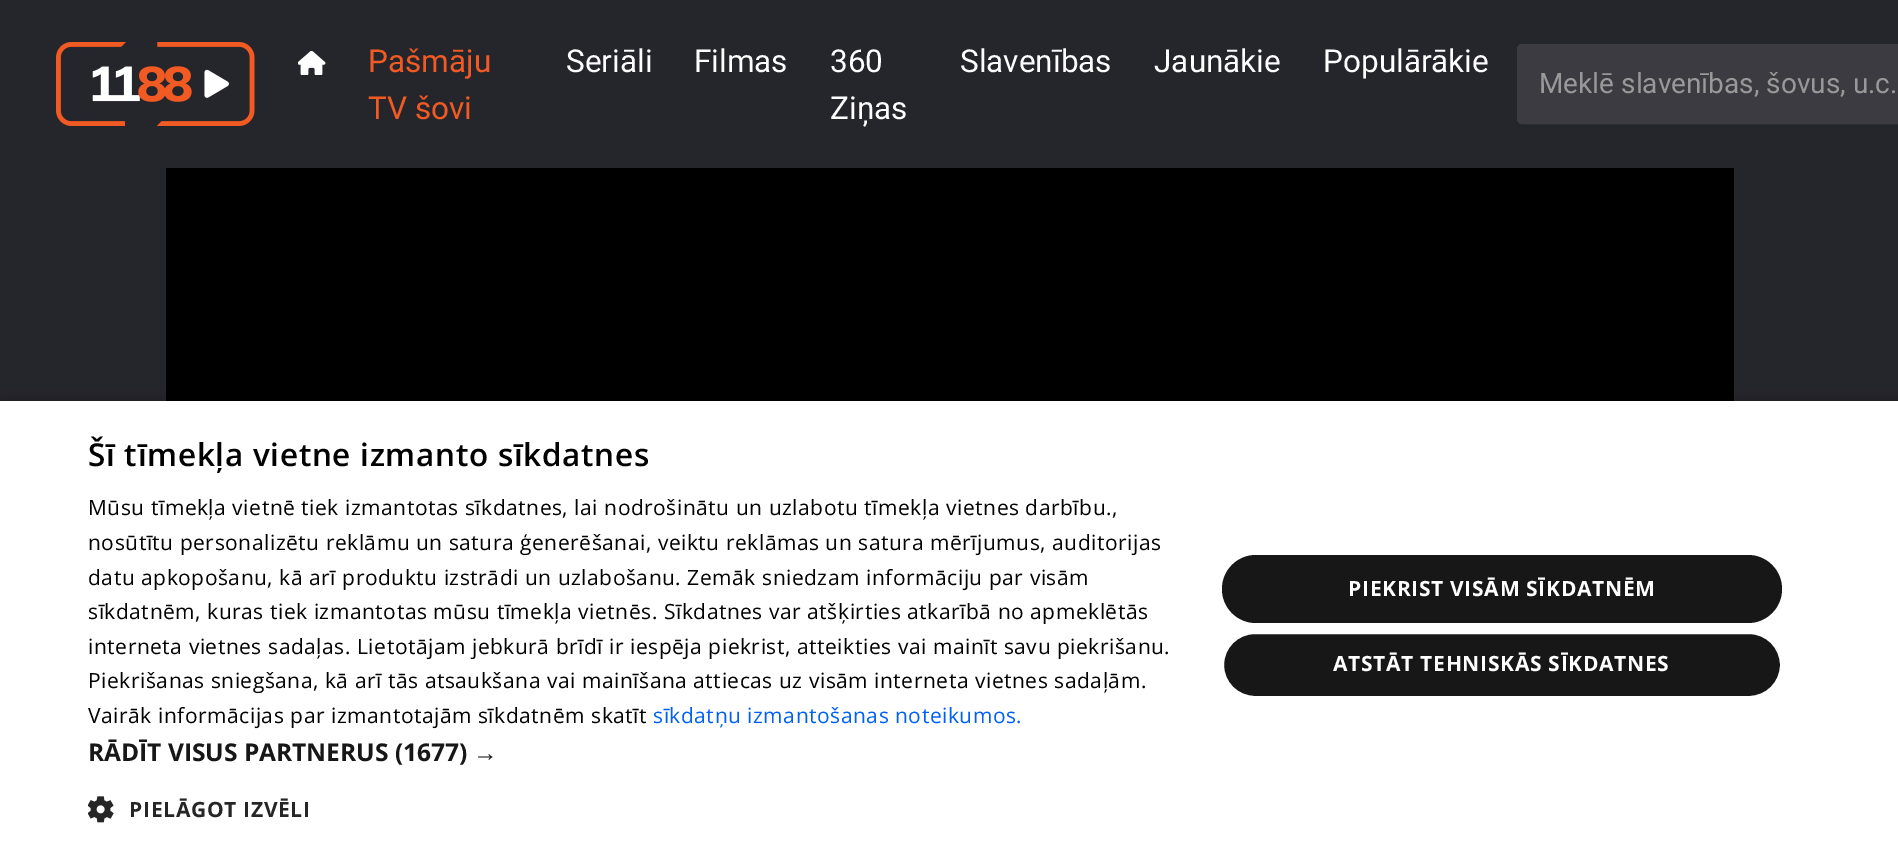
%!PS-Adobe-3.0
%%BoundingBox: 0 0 1898 852
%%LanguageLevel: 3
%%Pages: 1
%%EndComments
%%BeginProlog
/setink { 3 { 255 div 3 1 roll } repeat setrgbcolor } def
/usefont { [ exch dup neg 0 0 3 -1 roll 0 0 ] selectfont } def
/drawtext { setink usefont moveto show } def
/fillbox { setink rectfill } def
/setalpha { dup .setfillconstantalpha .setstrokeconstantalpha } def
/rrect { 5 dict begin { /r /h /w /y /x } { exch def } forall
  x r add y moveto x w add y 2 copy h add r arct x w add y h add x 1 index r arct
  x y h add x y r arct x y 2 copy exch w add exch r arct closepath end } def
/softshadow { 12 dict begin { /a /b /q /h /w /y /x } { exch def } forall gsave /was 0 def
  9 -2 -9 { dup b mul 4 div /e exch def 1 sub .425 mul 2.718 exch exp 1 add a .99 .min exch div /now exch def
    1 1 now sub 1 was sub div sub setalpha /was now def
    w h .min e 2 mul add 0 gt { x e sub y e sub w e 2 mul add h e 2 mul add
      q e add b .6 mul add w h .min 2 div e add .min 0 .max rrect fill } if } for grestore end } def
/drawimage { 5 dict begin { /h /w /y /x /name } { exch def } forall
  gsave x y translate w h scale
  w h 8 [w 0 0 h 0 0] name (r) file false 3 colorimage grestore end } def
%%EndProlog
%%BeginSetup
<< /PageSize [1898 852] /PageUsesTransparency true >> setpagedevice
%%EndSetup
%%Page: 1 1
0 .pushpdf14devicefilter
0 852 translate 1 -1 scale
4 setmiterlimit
0 0 1898 852 37 37 44 fillbox
(assets/img1.rgb) 56 42 199 84 drawimage
(assets/img2.rgb) 298 51 28 24 drawimage
(Pašmāju) 368 72 /Roboto-Regular 31.5 241 90 35 drawtext
(TV šovi) 368 119 /Roboto-Regular 31.5 241 90 35 drawtext
(Seriāli) 566 72 /Roboto-Regular 31.5 255 255 255 drawtext
(Filmas) 694 72 /Roboto-Regular 31.5 255 255 255 drawtext
(360) 830 72 /Roboto-Regular 31.5 255 255 255 drawtext
(Ziņas) 830 119 /Roboto-Regular 31.5 255 255 255 drawtext
(Slavenības) 960 72 /Roboto-Regular 31.5 255 255 255 drawtext
(Jaunākie) 1154 72 /Roboto-Regular 31.5 255 255 255 drawtext
(Populārākie) 1323 72 /Roboto-Regular 31.5 255 255 255 drawtext
59 59 65 setink
1518 45 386 78 4 rrect gsave fill grestore
2 setlinewidth
stroke
(Meklē slavenības, šovus, u.c.) 1539 93 /Roboto-Regular 28 153 153 153 drawtext
166 168 1568 233 0 0 0 fillbox
2 404 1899 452 0 7 0.35 softshadow
0 401 1898 451 255 255 255 fillbox
/OpenSans-SemiBold 31.5 usefont
0 0 0 setink
88 466 moveto 0.7 0 (Šī tīmekļa vietne izmanto sīkdatnes) ashow
/OpenSans-Regular 21 usefont
88 515 moveto 0.53 0 (Mūsu tīmekļa vietnē tiek izmantotas sīkdatnes, lai nodrošinātu un uzlabotu tīmekļa vietnes darbību.,) ashow
88 550 moveto 0.53 0 (nosūtītu personalizētu reklāmu un satura ģenerēšanai, veiktu reklāmas un satura mērījumus, auditorijas) ashow
88 585 moveto 0.53 0 (datu apkopošanu, kā arī produktu izstrādi un uzlabošanu. Zemāk sniedzam informāciju par visām) ashow
88 619 moveto 0.53 0 (sīkdatnēm, kuras tiek izmantotas mūsu tīmekļa vietnēs. Sīkdatnes var atšķirties atkarībā no apmeklētās) ashow
88 654 moveto 0.53 0 (interneta vietnes sadaļas. Lietotājam jebkurā brīdī ir iespēja piekrist, atteikties vai mainīt savu piekrišanu.) ashow
88 688 moveto 0.53 0 (Piekrišanas sniegšana, kā arī tās atsaukšana vai mainīšana attiecas uz visām interneta vietnes sadaļām.) ashow
88 723 moveto 0.53 0 (Vairāk informācijas par izmantotajām sīkdatnēm skatīt) ashow
0 96 245 setink
653 723 moveto 0.53 0 (sīkdatņu izmantošanas noteikumos.) ashow
(RĀDĪT VISUS PARTNERUS \(1677\)) 88 761 /OpenSans-Bold 24.5 23 23 23 drawtext
(→) 473 761 /LiberationSans-Bold 24.5 23 23 23 drawtext
(assets/img3.rgb) 88 796 26 27 drawimage
/OpenSans-Bold 21 usefont
38 38 38 setink
129 817 moveto 0.7 0 (PIELĀGOT IZVĒLI) ashow
23 23 23 setink
1222 555 560 68 34 rrect fill
255 255 255 setink
1348 596 moveto 0.7 0 (PIEKRIST VISĀM SĪKDATNĒM) ashow
23 23 23 setink
1223 633 558 64 32 rrect gsave fill grestore
255 255 255 setink
stroke
1333 671 moveto 0.7 0 (ATSTĀT TEHNISKĀS SĪKDATNES) ashow
.poppdf14devicefilter showpage
%%EOF
